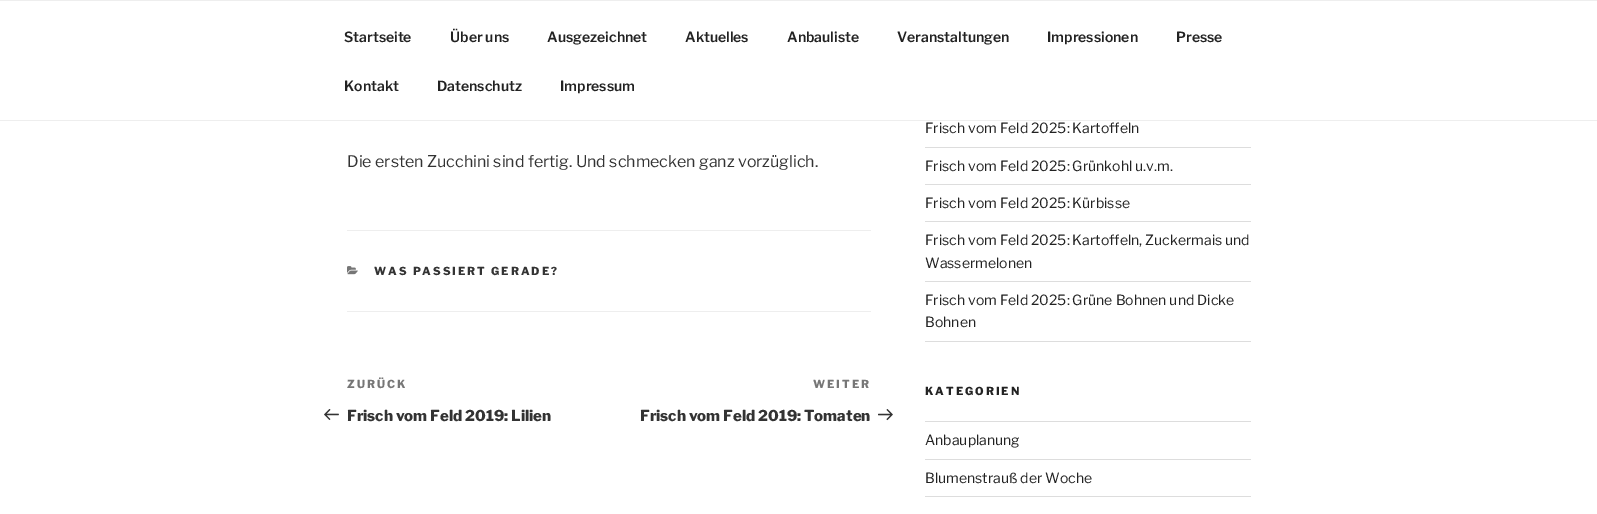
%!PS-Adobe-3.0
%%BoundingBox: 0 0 1597 514
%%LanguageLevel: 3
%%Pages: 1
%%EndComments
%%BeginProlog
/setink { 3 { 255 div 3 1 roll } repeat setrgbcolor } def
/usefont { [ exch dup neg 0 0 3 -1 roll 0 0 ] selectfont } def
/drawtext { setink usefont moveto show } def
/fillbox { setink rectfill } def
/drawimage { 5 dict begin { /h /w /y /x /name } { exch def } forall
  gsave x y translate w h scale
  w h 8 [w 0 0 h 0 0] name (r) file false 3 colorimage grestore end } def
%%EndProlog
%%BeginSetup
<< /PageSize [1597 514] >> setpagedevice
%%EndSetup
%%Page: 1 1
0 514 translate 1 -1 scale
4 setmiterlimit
0 0 1597 514 255 255 255 fillbox
0 0 1597 1 238 238 238 fillbox
0 120 1597 1 238 238 238 fillbox
(Startseite) 344 42 /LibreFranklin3-Thin 14 34 34 34 drawtext
(Über uns) 450 42 /LibreFranklin3-Thin 14 34 34 34 drawtext
(Ausgezeichnet) 547 42 /LibreFranklin3-Thin 14 34 34 34 drawtext
(Aktuelles) 685 42 /LibreFranklin3-Thin 14 34 34 34 drawtext
(Anbauliste) 787 42 /LibreFranklin3-Thin 14 34 34 34 drawtext
(Veranstaltungen) 897 42 /LibreFranklin3-Thin 14 34 34 34 drawtext
(Impressionen) 1047 42 /LibreFranklin3-Thin 14 34 34 34 drawtext
(Presse) 1176 42 /LibreFranklin3-Thin 14 34 34 34 drawtext
(Kontakt) 344 91 /LibreFranklin3-Thin 14 34 34 34 drawtext
(Datenschutz) 437 91 /LibreFranklin3-Thin 14 34 34 34 drawtext
(Impressum) 560 91 /LibreFranklin3-Thin 14 34 34 34 drawtext
(Die ersten Zucchini sind fertig. Und schmecken ganz vorzüglich.) 347 167 /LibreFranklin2-Thin 16 51 51 51 drawtext
347 230 524 1 238 238 238 fillbox
347 311 524 1 238 238 238 fillbox
(assets/img1.rgb) 347 266 11 9 drawimage
/LibreFranklin-Thin 11 usefont
51 51 51 setink
374 275 moveto 2 0 (WAS PASSIERT GERADE?) ashow
118 118 118 setink
347 388 moveto 2 0 (ZURÜCK) ashow
(assets/img2.rgb) 324 409 15 11 drawimage
(Frisch vom Feld 2019: Lilien) 347 421 /LibreFranklin-Thin 15 51 51 51 drawtext
/LibreFranklin-Thin 11 usefont
118 118 118 setink
813 388 moveto 2 0 (WEITER) ashow
(Frisch vom Feld 2019: Tomaten) 640 421 /LibreFranklin-Thin 15 51 51 51 drawtext
(assets/img3.rgb) 878 409 15 12 drawimage
925 147 326 1 221 221 221 fillbox
(Frisch vom Feld 2025: Kartoffeln) 925 133 /LibreFranklin2-Thin 14 34 34 34 drawtext
925 184 326 1 221 221 221 fillbox
(Frisch vom Feld 2025: Grünkohl u.v.m.) 925 171 /LibreFranklin2-Thin 14 34 34 34 drawtext
925 221 326 1 221 221 221 fillbox
(Frisch vom Feld 2025: Kürbisse) 925 208 /LibreFranklin2-Thin 14 34 34 34 drawtext
925 281 326 1 221 221 221 fillbox
(Frisch vom Feld 2025: Kartoffeln, Zuckermais und) 925 245 /LibreFranklin2-Thin 14 34 34 34 drawtext
(Wassermelonen) 925 268 /LibreFranklin2-Thin 14 34 34 34 drawtext
925 341 326 1 221 221 221 fillbox
(Frisch vom Feld 2025: Grüne Bohnen und Dicke) 925 305 /LibreFranklin2-Thin 14 34 34 34 drawtext
(Bohnen) 925 327 /LibreFranklin2-Thin 14 34 34 34 drawtext
/LibreFranklin-Thin 11 usefont
925 395 moveto 2 0 (KATEGORIEN) ashow
925 421 326 1 221 221 221 fillbox
925 459 326 1 221 221 221 fillbox
(Anbauplanung) 925 445 /LibreFranklin2-Thin 14 34 34 34 drawtext
925 496 326 1 221 221 221 fillbox
(Blumenstrauß der Woche) 925 483 /LibreFranklin2-Thin 14 34 34 34 drawtext
showpage
%%EOF
